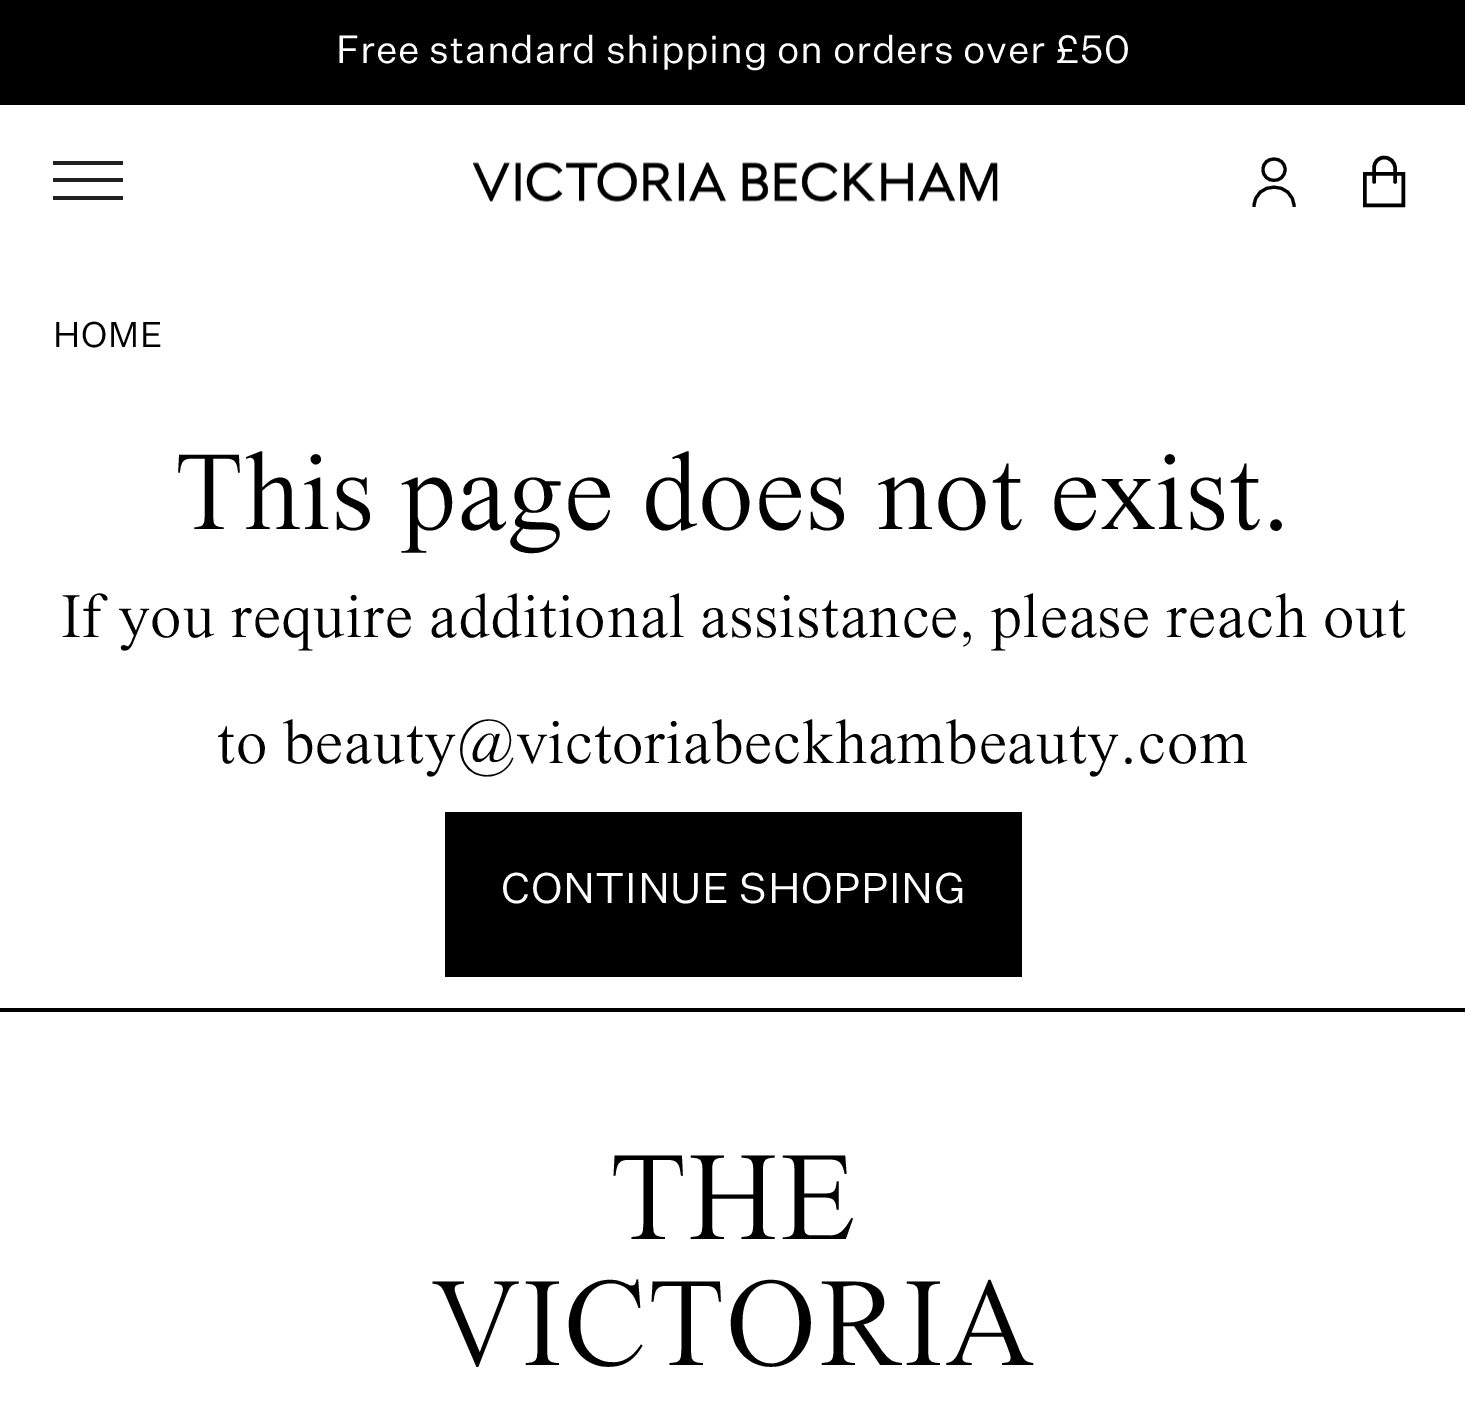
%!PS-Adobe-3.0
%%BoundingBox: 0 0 1465 1425
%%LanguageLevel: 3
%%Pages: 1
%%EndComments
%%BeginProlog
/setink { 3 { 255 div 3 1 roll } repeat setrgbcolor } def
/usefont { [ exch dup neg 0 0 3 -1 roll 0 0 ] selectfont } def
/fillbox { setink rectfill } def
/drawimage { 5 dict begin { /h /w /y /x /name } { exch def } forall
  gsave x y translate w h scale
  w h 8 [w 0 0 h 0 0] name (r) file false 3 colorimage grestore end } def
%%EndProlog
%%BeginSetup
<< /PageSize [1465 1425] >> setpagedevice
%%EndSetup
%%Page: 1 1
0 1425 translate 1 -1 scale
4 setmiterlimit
0 0 1465 1425 255 255 255 fillbox
0 0 1465 105 0 0 0 fillbox
/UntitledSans-Regular 38.5 usefont
255 255 255 setink
336 63 moveto 0.7 0 (Free standard shipping on orders over £50) ashow
53 161 70 4 32 32 32 fillbox
53 178 70 4 32 32 32 fillbox
53 196 70 4 32 32 32 fillbox
0 0 0 setink
3.1 setlinewidth
1263 169.5 moveto 1263 155.5 1285 155.5 1285 169.5 curveto 1285 184 1263 184 1263 169.5 curveto stroke
gsave
1252 185 44 22 rectclip
1254 207 moveto 1254 180.5 1294 180.5 1294 207 curveto 1294 233.5 1254 233.5 1254 207 curveto stroke
grestore
3.5 setlinewidth
1364.75 173.75 38.5 31.5 rectstroke
1 setlinecap
1374 182 moveto 1374 168 lineto 1374 162 1378.5 157.5 1384 157.5 curveto 1390 157.5 1395 162 1395 168 curveto 1395 182 lineto stroke
(assets/img1.rgb) 473 162 525 40 drawimage
/UntitledSans-Regular 35 usefont
53 347 moveto 0.7 0 (HOME) ashow
0 1008 1465 4 0 0 0 fillbox
/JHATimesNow-Light 112 usefont
175 529 moveto 0.7 0 (This page does not exist.) ashow
/JHATimesNow-Light 63 usefont
61 637 moveto 0.7 0 (If you require additional assistance, please reach out) ashow
217 763 moveto 0.7 0 (to beauty@victoriabeckhambeauty.com) ashow
445 812 577 165 0 0 0 fillbox
/UntitledSans-Regular 42 usefont
255 255 255 setink
501 903 moveto 0.7 0 (CONTINUE SHOPPING) ashow
/JHATimesNow-Light 126 usefont
0 0 0 setink
610 1239 moveto 0.7 0 (THE) ashow
430 1365 moveto 0.7 0 (VICTORIA) ashow
showpage
%%EOF
